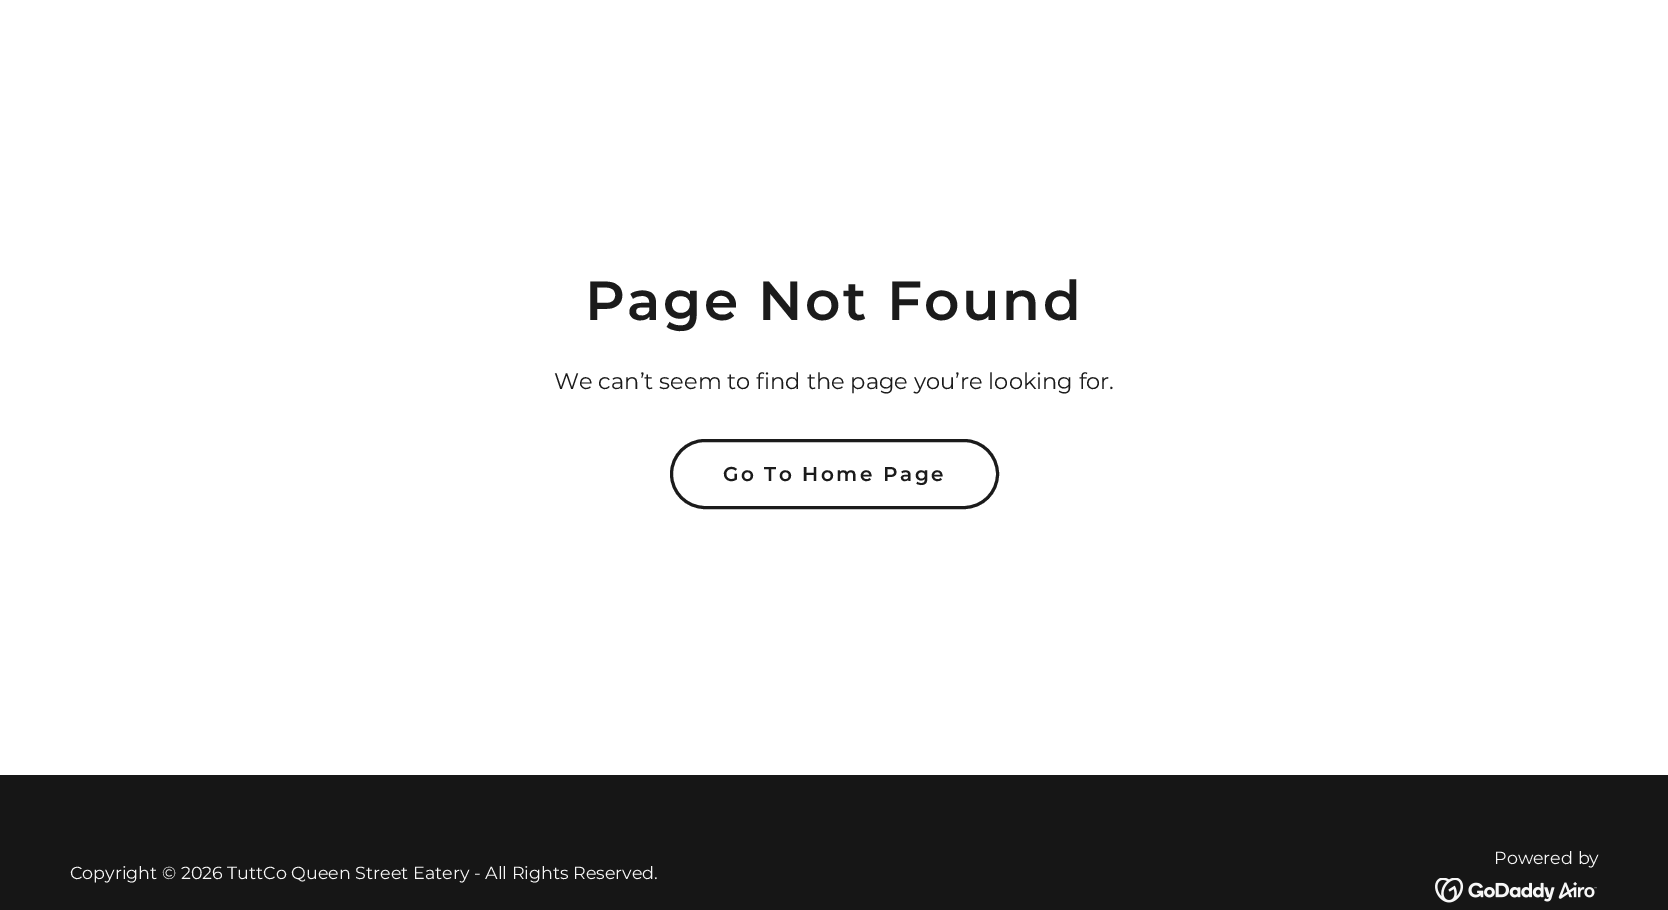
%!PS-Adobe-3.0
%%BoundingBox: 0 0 1668 910
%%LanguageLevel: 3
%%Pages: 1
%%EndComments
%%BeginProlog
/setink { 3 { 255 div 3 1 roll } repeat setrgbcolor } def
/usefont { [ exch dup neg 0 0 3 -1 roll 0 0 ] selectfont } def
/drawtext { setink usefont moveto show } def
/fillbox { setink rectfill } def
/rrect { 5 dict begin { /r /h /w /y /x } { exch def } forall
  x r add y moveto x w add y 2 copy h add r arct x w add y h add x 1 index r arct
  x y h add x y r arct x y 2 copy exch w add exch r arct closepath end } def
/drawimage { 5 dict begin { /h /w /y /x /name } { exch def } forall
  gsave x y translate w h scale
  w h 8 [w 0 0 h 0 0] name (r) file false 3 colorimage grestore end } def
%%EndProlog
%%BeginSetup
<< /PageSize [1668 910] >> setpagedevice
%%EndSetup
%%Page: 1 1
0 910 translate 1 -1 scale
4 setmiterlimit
0 0 1668 910 22 22 22 fillbox
0 0 1668 775 255 255 255 fillbox
/Montserrat-SemiBold 55 usefont
27 27 27 setink
585 320 moveto 2.5 0 (Page Not Found) ashow
(We can’t seem to find the page you’re looking for.) 554 389 /Montserrat-Regular 22.5 27 27 27 drawtext
3 setlinewidth
671.5 440.5 326 67 33.5 rrect stroke
/Montserrat-SemiBold 20 usefont
723 481 moveto 2.5 0 (Go To Home Page) ashow
(Powered by) 1494 864 /Montserrat-Regular 17.5 247 247 247 drawtext
(assets/img1.rgb) 1435 878 162 25 drawimage
(Copyright © 2026 TuttCo Queen Street Eatery - All Rights Reserved.) 70 879 /Montserrat-Regular 17.5 247 247 247 drawtext
showpage
%%EOF
